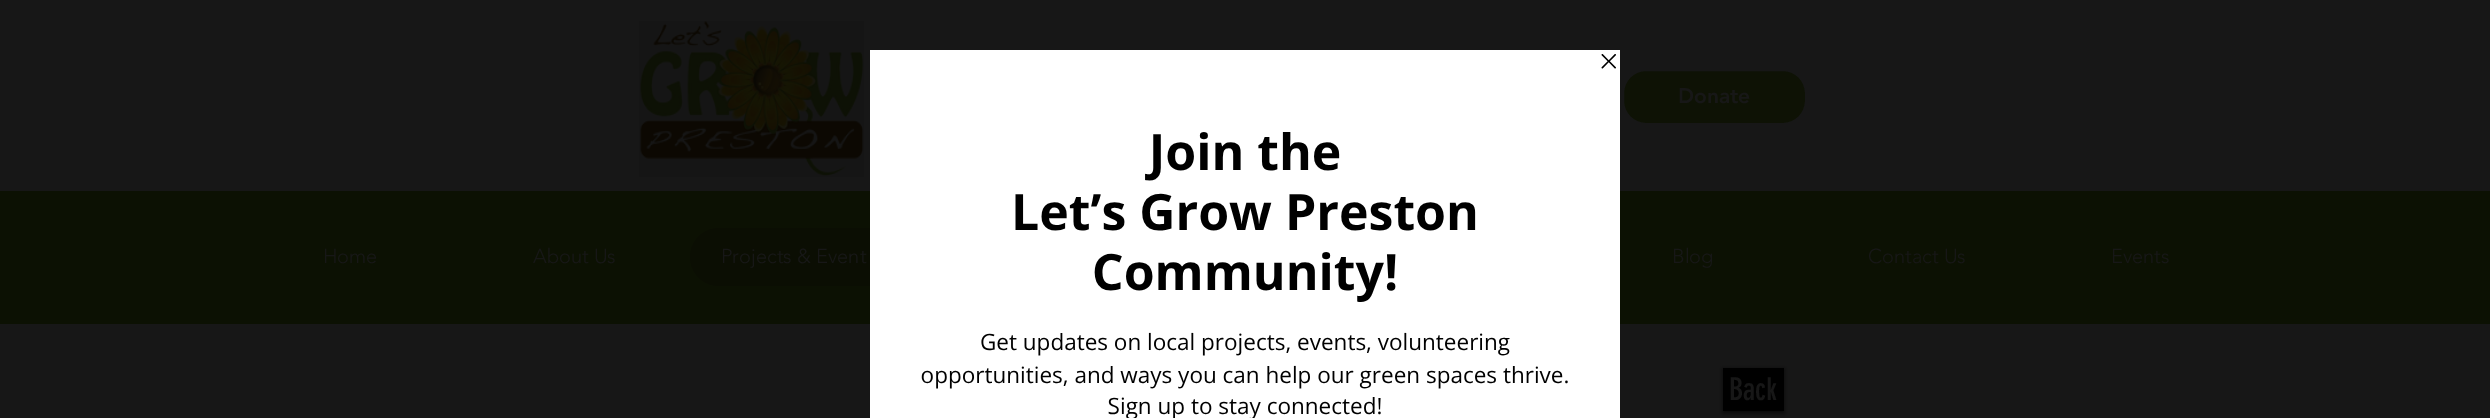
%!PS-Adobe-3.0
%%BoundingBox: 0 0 2490 418
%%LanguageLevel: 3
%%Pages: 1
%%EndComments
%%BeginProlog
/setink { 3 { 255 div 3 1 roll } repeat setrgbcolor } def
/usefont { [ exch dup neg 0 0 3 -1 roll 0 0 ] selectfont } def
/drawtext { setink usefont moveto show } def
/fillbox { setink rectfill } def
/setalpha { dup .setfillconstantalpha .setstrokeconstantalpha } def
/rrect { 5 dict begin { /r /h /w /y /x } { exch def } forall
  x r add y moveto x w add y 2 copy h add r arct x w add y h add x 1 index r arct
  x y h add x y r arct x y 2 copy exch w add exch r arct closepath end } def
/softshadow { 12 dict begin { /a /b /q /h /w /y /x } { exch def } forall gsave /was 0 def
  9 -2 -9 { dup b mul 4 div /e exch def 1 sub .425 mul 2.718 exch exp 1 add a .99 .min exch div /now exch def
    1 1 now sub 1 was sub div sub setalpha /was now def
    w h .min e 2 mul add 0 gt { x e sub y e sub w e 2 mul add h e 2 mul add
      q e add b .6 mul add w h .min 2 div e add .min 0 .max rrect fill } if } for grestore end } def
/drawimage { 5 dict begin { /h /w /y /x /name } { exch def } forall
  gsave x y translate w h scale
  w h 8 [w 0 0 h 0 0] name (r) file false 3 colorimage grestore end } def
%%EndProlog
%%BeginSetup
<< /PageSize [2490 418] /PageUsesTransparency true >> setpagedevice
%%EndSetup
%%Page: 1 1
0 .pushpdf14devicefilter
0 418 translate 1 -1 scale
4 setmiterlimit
0 0 2490 418 23 23 23 fillbox
0 191 2490 133 12 17 3 fillbox
11 14 3 setink
690 228 216 58 29 rrect fill
(assets/img1.rgb) 870 50 750 368 drawimage
(assets/img2.rgb) 639 21 225 156 drawimage
14 18 5 setink
1622.5 69.5 184 55 23.5 rrect gsave fill grestore
23 23 23 setink
3 setlinewidth
stroke
(Donate) 1678 103 /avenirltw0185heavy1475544-Black 21 23 23 23 drawtext
(Home) 323 263 /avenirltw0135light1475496-Light 20 23 23 23 drawtext
(About Us) 533 263 /avenirltw0135light1475496-Light 20 23 23 23 drawtext
(Projects & Event) 721 263 /avenirltw0135light1475496-Light 20 23 23 23 drawtext
(Blog) 1672 263 /avenirltw0135light1475496-Light 20 23 23 23 drawtext
(Contact Us) 1868 263 /avenirltw0135light1475496-Light 20 23 23 23 drawtext
(Events) 2111 263 /avenirltw0135light1475496-Light 20 23 23 23 drawtext
0 0 0 setink
1723 369 61 44 0 2.5 0.6 softshadow
1723 368 61 43 0 0 0 fillbox
(Back) 1729 400 /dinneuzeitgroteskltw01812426-Regular 31 23 23 23 drawtext
.poppdf14devicefilter showpage
%%EOF
